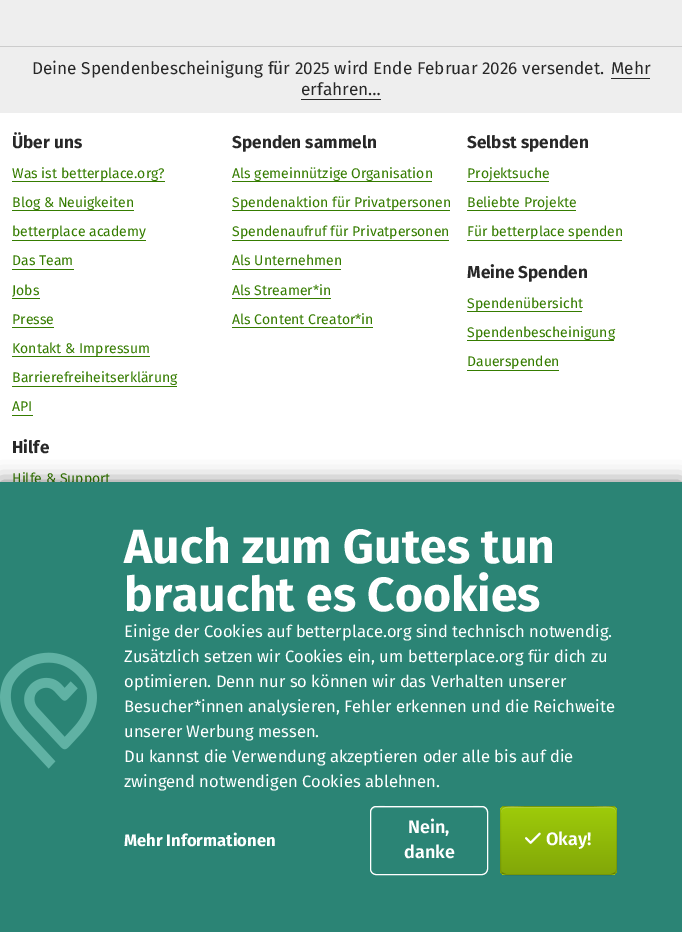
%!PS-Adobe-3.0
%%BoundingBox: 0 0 682 932
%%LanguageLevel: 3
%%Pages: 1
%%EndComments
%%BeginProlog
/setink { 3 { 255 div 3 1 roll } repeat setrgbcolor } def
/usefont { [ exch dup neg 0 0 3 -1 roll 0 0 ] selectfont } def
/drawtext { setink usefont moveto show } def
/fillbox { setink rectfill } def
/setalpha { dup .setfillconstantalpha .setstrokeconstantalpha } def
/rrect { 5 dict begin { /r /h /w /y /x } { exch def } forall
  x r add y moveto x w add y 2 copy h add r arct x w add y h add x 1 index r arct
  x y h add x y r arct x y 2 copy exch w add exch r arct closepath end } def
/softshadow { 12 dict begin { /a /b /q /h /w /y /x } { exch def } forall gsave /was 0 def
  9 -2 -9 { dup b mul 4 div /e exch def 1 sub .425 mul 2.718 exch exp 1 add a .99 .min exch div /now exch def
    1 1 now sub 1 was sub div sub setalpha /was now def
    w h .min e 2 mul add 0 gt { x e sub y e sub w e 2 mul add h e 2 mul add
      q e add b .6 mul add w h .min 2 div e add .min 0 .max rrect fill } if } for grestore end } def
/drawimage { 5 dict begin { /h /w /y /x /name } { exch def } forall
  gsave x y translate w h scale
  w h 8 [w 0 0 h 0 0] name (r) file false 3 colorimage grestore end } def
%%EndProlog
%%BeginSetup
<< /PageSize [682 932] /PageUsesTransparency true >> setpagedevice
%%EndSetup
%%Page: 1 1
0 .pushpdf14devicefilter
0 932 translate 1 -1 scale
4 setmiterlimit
0 0 682 932 255 255 255 fillbox
0 0 682 46 238 238 238 fillbox
0 46 682 1 204 204 204 fillbox
0 47 682 66 238 238 238 fillbox
(Deine Spendenbescheinigung für 2025 wird Ende Februar 2026 versendet.) 32 74 /FiraSans-Regular 17.2 40 40 40 drawtext
(Mehr) 611 74 /FiraSans-Regular 17.2 40 40 40 drawtext
611 78 39 1 40 40 40 fillbox
(erfahren…) 301 95 /FiraSans-Regular 17.2 40 40 40 drawtext
301 99 80 1 40 40 40 fillbox
(Über uns) 12 148 /FiraSans-Bold 17.2 40 40 40 drawtext
(Was ist betterplace.org?) 12 178 /FiraSans-Regular 14 53 124 0 drawtext
12 181 153 1 53 124 0 fillbox
(Blog & Neuigkeiten) 12 207 /FiraSans-Regular 14 53 124 0 drawtext
12 210 122 1 53 124 0 fillbox
(betterplace academy) 12 236 /FiraSans-Regular 14 53 124 0 drawtext
12 240 134 1 53 124 0 fillbox
(Das Team) 12 265 /FiraSans-Regular 14 53 124 0 drawtext
12 269 62 1 53 124 0 fillbox
(Jobs) 12 295 /FiraSans-Regular 14 53 124 0 drawtext
12 298 28 1 53 124 0 fillbox
(Presse) 12 324 /FiraSans-Regular 14 53 124 0 drawtext
12 327 42 1 53 124 0 fillbox
(Kontakt & Impressum) 12 353 /FiraSans-Regular 14 53 124 0 drawtext
12 356 138 1 53 124 0 fillbox
(Barrierefreiheitserklärung) 12 382 /FiraSans-Regular 14 53 124 0 drawtext
12 386 165 1 53 124 0 fillbox
(API) 12 411 /FiraSans-Regular 14 53 124 0 drawtext
12 415 21 1 53 124 0 fillbox
(Spenden sammeln) 232 148 /FiraSans-Bold 17.2 40 40 40 drawtext
(Als gemeinnützige Organisation) 232 178 /FiraSans-Regular 14 53 124 0 drawtext
232 181 200 1 53 124 0 fillbox
(Spendenaktion für Privatpersonen) 232 207 /FiraSans-Regular 14 53 124 0 drawtext
232 210 218 1 53 124 0 fillbox
(Spendenaufruf für Privatpersonen) 232 236 /FiraSans-Regular 14 53 124 0 drawtext
232 240 217 1 53 124 0 fillbox
(Als Unternehmen) 232 265 /FiraSans-Regular 14 53 124 0 drawtext
232 269 109 1 53 124 0 fillbox
(Als Streamer*in) 232 295 /FiraSans-Regular 14 53 124 0 drawtext
232 298 99 1 53 124 0 fillbox
(Als Content Creator*in) 232 324 /FiraSans-Regular 14 53 124 0 drawtext
232 327 141 1 53 124 0 fillbox
(Selbst spenden) 467 148 /FiraSans-Bold 17.2 40 40 40 drawtext
(Projektsuche) 467 178 /FiraSans-Regular 14 53 124 0 drawtext
467 181 82 1 53 124 0 fillbox
(Beliebte Projekte) 467 207 /FiraSans-Regular 14 53 124 0 drawtext
467 210 109 1 53 124 0 fillbox
(Für betterplace spenden) 467 236 /FiraSans-Regular 14 53 124 0 drawtext
467 240 155 1 53 124 0 fillbox
(Meine Spenden) 467 278 /FiraSans-Bold 17.2 40 40 40 drawtext
(Spendenübersicht) 467 308 /FiraSans-Regular 14 53 124 0 drawtext
467 311 115 1 53 124 0 fillbox
(Spendenbescheinigung) 467 337 /FiraSans-Regular 14 53 124 0 drawtext
467 340 147 1 53 124 0 fillbox
(Dauerspenden) 467 366 /FiraSans-Regular 14 53 124 0 drawtext
467 370 92 1 53 124 0 fillbox
(Hilfe) 12 453 /FiraSans-Bold 17.2 40 40 40 drawtext
(Hilfe & Support) 12 483 /FiraSans-Regular 14 53 124 0 drawtext
0 0 0 setink
0 482 682 450 0 10 0.5 softshadow
0 482 682 450 43 132 117 fillbox
(assets/img1.rgb) 0 652 97 117 drawimage
(Auch zum Gutes tun) 124 563 /FiraSans-Bold 48 255 255 255 drawtext
(braucht es Cookies) 124 611 /FiraSans-Bold 48 255 255 255 drawtext
(Einige der Cookies auf betterplace.org sind technisch notwendig.) 124 637 /FiraSans-Regular 16.6 255 255 255 drawtext
(Zusätzlich setzen wir Cookies ein, um betterplace.org für dich zu) 124 662 /FiraSans-Regular 16.6 255 255 255 drawtext
(optimieren. Denn nur so können wir das Verhalten unserer) 124 687 /FiraSans-Regular 16.6 255 255 255 drawtext
(Besucher*innen analysieren, Fehler erkennen und die Reichweite) 124 712 /FiraSans-Regular 16.6 255 255 255 drawtext
(unserer Werbung messen.) 124 737 /FiraSans-Regular 16.6 255 255 255 drawtext
(Du kannst die Verwendung akzeptieren oder alle bis auf die) 124 762 /FiraSans-Regular 16.6 255 255 255 drawtext
(zwingend notwendigen Cookies ablehnen.) 124 787 /FiraSans-Regular 16.6 255 255 255 drawtext
(Mehr Informationen) 124 846 /FiraSans-Bold 16.6 255 255 255 drawtext
85 157 145 setink
376 808 moveto 482 808 lineto 485 808 487 810 487 813 curveto 487 802 469 807 464 807 curveto 394 807 lineto 389 807 371 802 371 813 curveto 371 810 373 808 376 808 curveto closepath fill
255 255 255 setink
370.5 806.5 117 68 5.5 rrect stroke
(Nein,) 408 833 /FiraSans-SemiBold 18 255 255 255 drawtext
(danke) 404 858 /FiraSans-SemiBold 18 255 255 255 drawtext
gsave
500 806 117 69 6 rrect clip newpath
gsave 500 806 moveto 617 806 lineto 617 807 lineto 500 807 lineto closepath clip newpath
<< /ShadingType 2 /ColorSpace /DeviceRGB /Coords [559 740 559 807] /Extend [true true] /Function << /FunctionType 2 /Domain [0 1] /C0 [0.62 0.796 0.039] /C1 [0.51 0.655 0.031] /N 1 >> >> shfill grestore
gsave 500 807 moveto 617 807 lineto 617 874 lineto 500 874 lineto closepath clip newpath
<< /ShadingType 2 /ColorSpace /DeviceRGB /Coords [559 807 559 874] /Extend [true true] /Function << /FunctionType 2 /Domain [0 1] /C0 [0.62 0.796 0.039] /C1 [0.51 0.655 0.031] /N 1 >> >> shfill grestore
gsave 500 874 moveto 617 874 lineto 617 875 lineto 500 875 lineto closepath clip newpath
<< /ShadingType 2 /ColorSpace /DeviceRGB /Coords [559 874 559 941] /Extend [true true] /Function << /FunctionType 2 /Domain [0 1] /C0 [0.62 0.796 0.039] /C1 [0.51 0.655 0.031] /N 1 >> >> shfill grestore
grestore
0.2 setalpha
506 808 moveto 611 808 lineto 614 808 616 810 616 813 curveto 616 803 598 807 594 807 curveto 524 807 lineto 519 807 501 803 501 813 curveto 501 810 503 808 506 808 curveto closepath fill
0.25 setalpha
0 0 0 setink
615 873 moveto 611.5 874.5 lineto 505.5 874.5 lineto 502 873 lineto stroke
0.1 setalpha
502 873 moveto 501 872 500.5 870.5 500.5 869 curveto 500.5 812 lineto 500.5 810.5 501 809 502 808 curveto 503 807 504.5 806.5 506 806.5 curveto 611 806.5 lineto 612.5 806.5 614 807 615 808 curveto 616 809 616.5 810.5 616.5 812 curveto 616.5 869 lineto 616.5 870.5 616 872 615 873 curveto stroke
1 setalpha
(assets/img2.rgb) 525 832 16 12 drawimage
(Okay!) 546 845 /FiraSans-SemiBold 18 255 255 255 drawtext
.poppdf14devicefilter showpage
%%EOF
